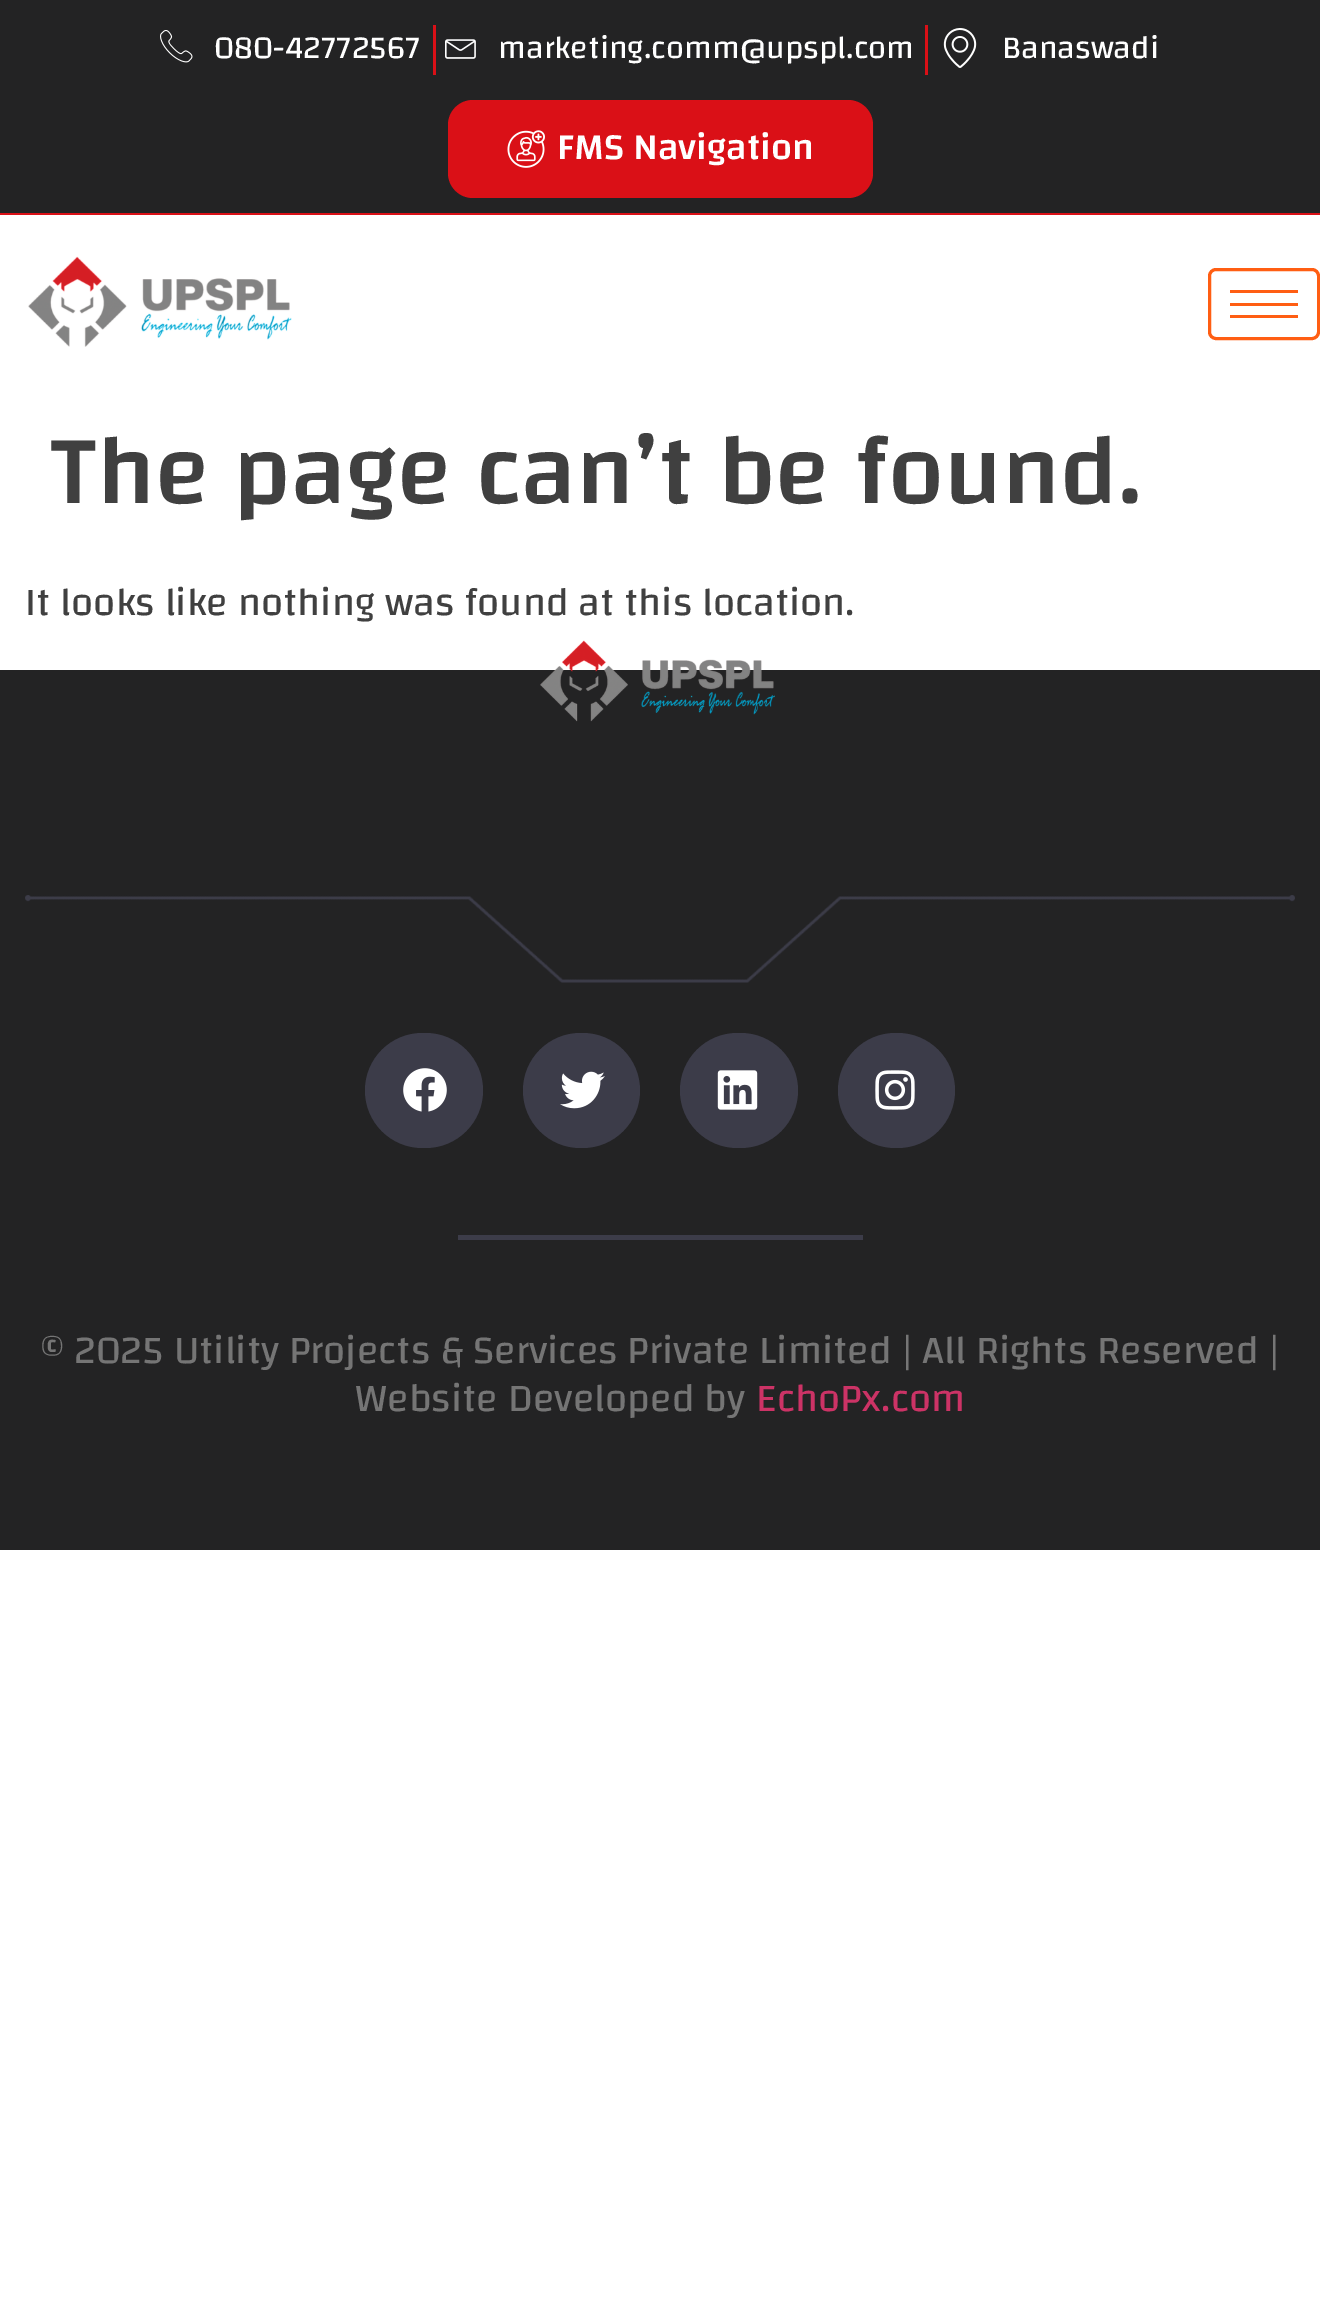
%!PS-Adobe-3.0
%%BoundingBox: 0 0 1320 2308
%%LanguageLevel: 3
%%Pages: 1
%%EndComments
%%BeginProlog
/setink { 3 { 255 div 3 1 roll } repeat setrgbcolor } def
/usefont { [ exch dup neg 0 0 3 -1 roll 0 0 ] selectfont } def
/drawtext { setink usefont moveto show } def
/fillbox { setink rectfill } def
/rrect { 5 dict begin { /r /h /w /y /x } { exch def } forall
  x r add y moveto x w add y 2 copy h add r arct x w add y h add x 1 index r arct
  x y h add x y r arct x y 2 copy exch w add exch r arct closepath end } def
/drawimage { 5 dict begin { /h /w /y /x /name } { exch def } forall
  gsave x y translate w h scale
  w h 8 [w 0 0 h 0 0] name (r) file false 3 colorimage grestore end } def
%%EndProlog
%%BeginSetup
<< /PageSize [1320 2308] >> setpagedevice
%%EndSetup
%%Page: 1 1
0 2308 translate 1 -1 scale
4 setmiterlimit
0 0 1320 2308 255 255 255 fillbox
0 0 1320 213 35 35 36 fillbox
0 213 1320 2 218 16 23 fillbox
(assets/img1.rgb) 160 30 33 33 drawimage
(080-42772567) 214 58 /Changa-Regular 32.5 255 255 255 drawtext
433 25 3 50 218 16 23 fillbox
(assets/img2.rgb) 445 39 31 20 drawimage
(marketing.comm@upspl.com) 498 58 /Changa-Regular 32.5 255 255 255 drawtext
925 25 3 50 218 16 23 fillbox
(assets/img3.rgb) 943 28 34 40 drawimage
(Banaswadi) 1002 58 /Changa-Regular 32.5 255 255 255 drawtext
218 16 23 setink
448 100 425 98 25 rrect fill
(assets/img4.rgb) 507 130 38 38 drawimage
(FMS Navigation) 557 159 /Changa-Medium 37.5 255 255 255 drawtext
(assets/img5.rgb) 28 256 264 91 drawimage
255 94 19 setink
3 setlinewidth
1209.5 269.5 109 69 6.5 rrect stroke
1230 290 68 3 255 94 19 fillbox
1230 303 68 3 255 94 19 fillbox
1230 315 68 3 255 94 19 fillbox
(The page can’t be found.) 50 503 /Changa-Medium 100 64 64 64 drawtext
(It looks like nothing was found at this location.) 25 615 /Changa-Regular 40 64 64 64 drawtext
0 670 1320 880 35 35 36 fillbox
(assets/img6.rgb) 540 640 235 82 drawimage
(assets/img7.rgb) 25 895 1270 88 drawimage
60 60 73 setink
365 1033 118 115 57.5 rrect fill
(assets/img8.rgb) 403 1068 44 44 drawimage
523 1033 117 115 57.5 rrect fill
(assets/img9.rgb) 560 1071 45 38 drawimage
680 1033 118 115 57.5 rrect fill
(assets/img10.rgb) 717 1070 41 40 drawimage
838 1033 117 115 57.5 rrect fill
(assets/img11.rgb) 875 1070 40 40 drawimage
458 1235 405 5 60 60 73 fillbox
(© 2025 Utility Projects & Services Private Limited | All Rights Reserved |) 41 1363 /Changa-Regular 40 117 117 117 drawtext
(Website Developed by) 355 1411 /Changa-Regular 40 117 117 117 drawtext
(EchoPx.com) 756 1411 /Changa-Regular 40 204 51 102 drawtext
showpage
%%EOF
